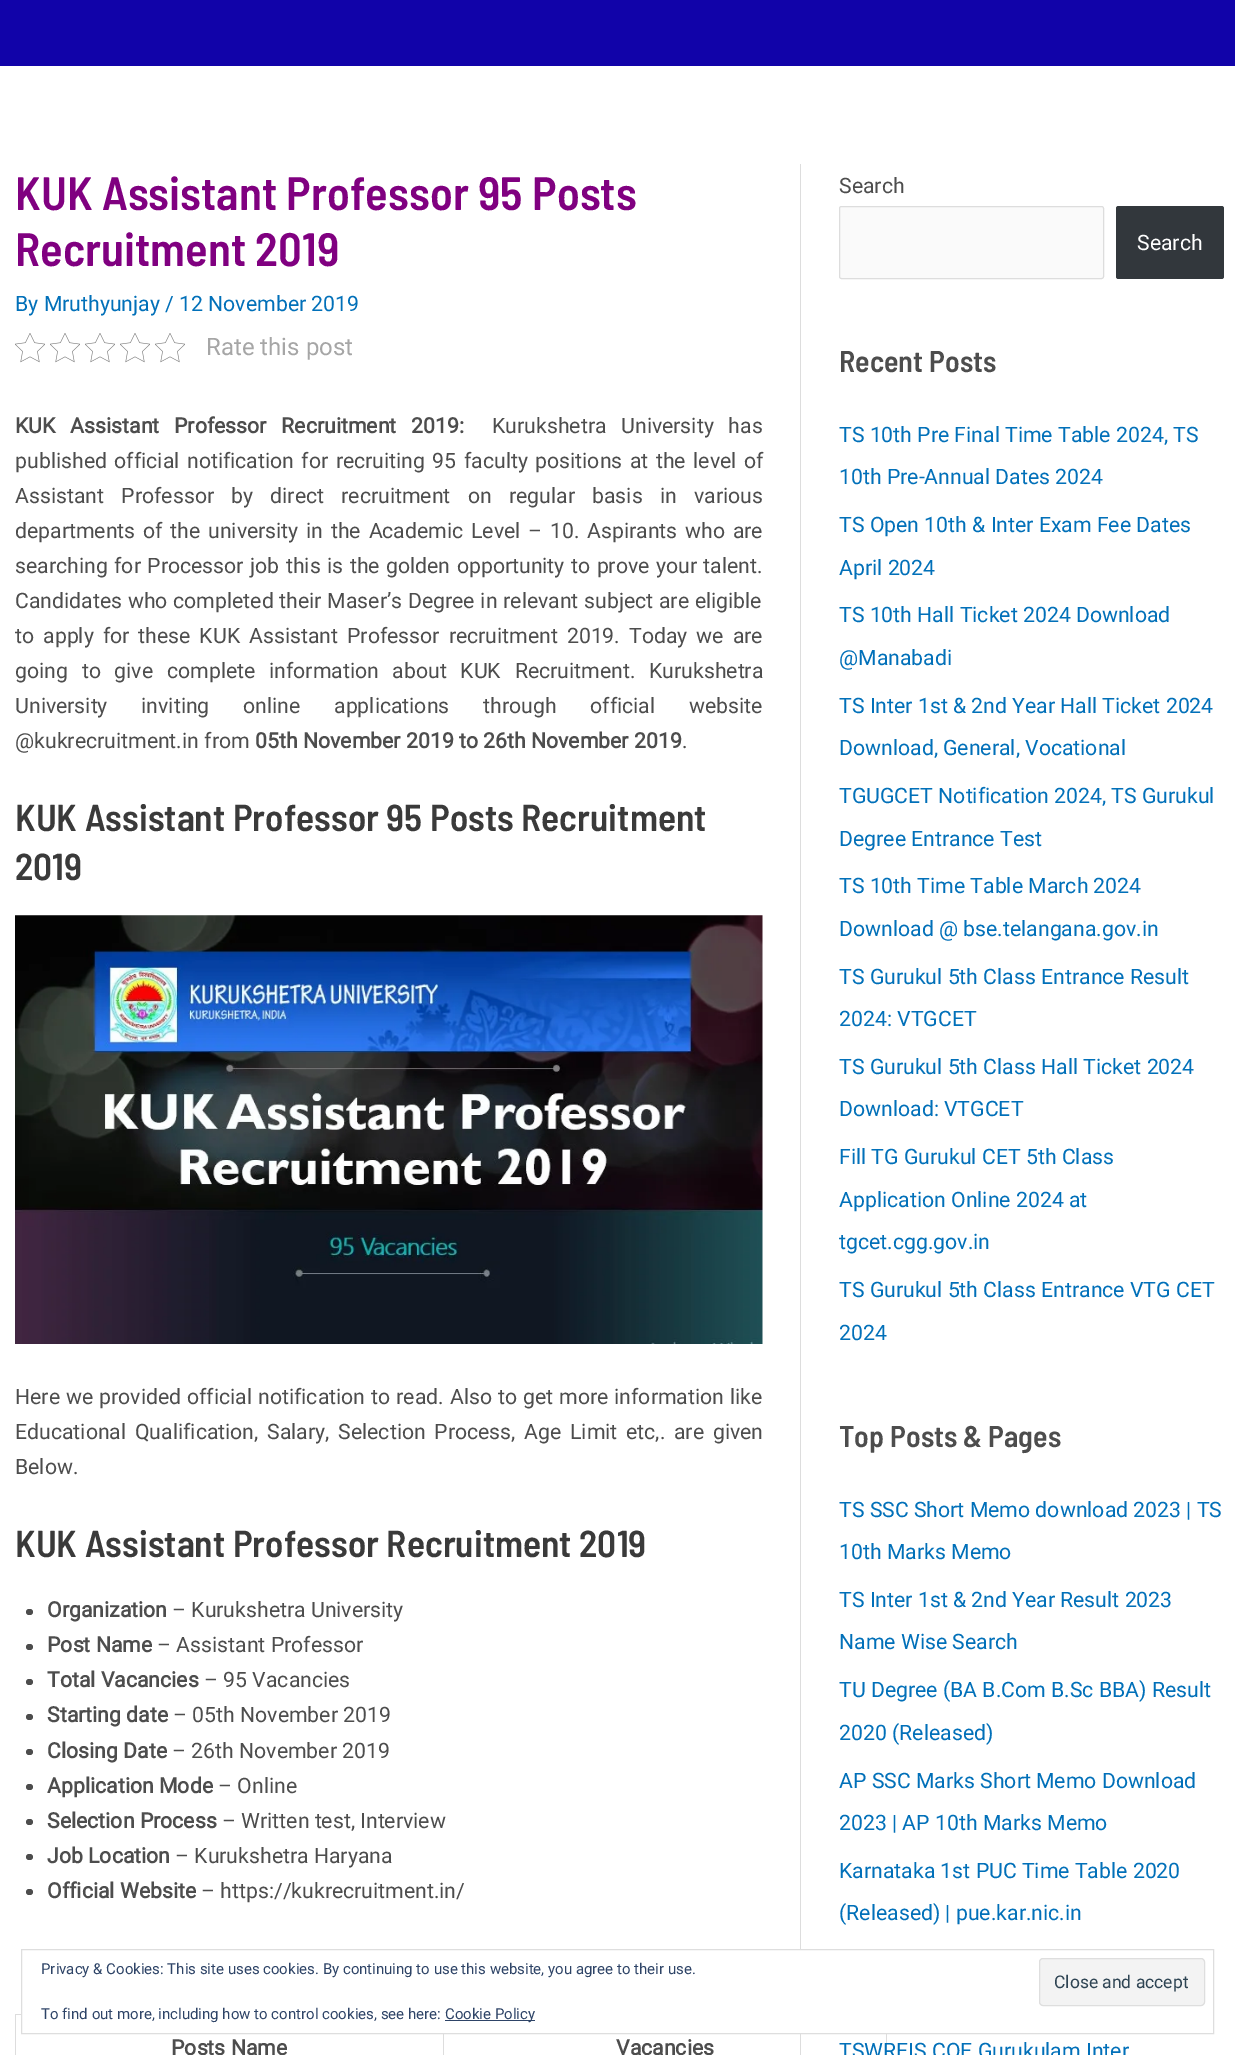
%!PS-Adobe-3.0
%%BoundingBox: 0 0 1235 2055
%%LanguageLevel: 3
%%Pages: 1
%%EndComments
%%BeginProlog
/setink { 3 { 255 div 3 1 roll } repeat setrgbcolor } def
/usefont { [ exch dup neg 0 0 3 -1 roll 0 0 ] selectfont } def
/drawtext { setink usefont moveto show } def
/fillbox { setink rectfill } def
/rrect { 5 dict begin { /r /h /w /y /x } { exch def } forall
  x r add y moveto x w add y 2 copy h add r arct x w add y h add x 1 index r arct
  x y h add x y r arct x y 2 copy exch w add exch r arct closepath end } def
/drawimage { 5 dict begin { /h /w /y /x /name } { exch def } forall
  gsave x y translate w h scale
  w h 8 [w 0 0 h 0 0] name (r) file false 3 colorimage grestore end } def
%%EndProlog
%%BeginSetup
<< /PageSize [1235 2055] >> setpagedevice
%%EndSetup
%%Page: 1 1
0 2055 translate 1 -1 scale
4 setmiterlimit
0 0 1235 2055 255 255 255 fillbox
0 0 1235 66 17 3 169 fillbox
800 164 1 1891 221 221 221 fillbox
(KUK Assistant Professor 95 Posts) 15 210 /BarlowSemiCondensed-SemiBold 46.75 128 0 128 drawtext
(Recruitment 2019) 15 266 /BarlowSemiCondensed-SemiBold 46.75 128 0 128 drawtext
(By Mruthyunjay / 12 November 2019) 15 311 /Roboto-Regular 21.25 1 112 185 drawtext
(assets/img1.rgb) 15 333 30 30 drawimage
(assets/img1.rgb) 50 333 30 30 drawimage
(assets/img1.rgb) 85 333 30 30 drawimage
(assets/img1.rgb) 120 333 30 30 drawimage
(assets/img1.rgb) 155 333 30 30 drawimage
(Rate this post) 206 355 /Roboto-Regular 24 166 166 166 drawtext
/Roboto-Bold 21.25 usefont
77 77 77 setink
15 433 moveto 9.5 0 32 (KUK Assistant Professor Recruitment 2019:) widthshow
/Roboto-Regular 21.25 usefont
492 433 moveto 9.5 0 32 (Kurukshetra University has) widthshow
15 468 moveto 2.25 0 32 (published official notification for recruiting 95 faculty positions at the level of) widthshow
15 503 moveto 12 0 32 (Assistant Professor by direct recruitment on regular basis in various) widthshow
15 538 moveto 2.5 0 32 (departments of the university in the Academic Level – 10. Aspirants who are) widthshow
15 573 moveto 1.25 0 32 (searching for Processor job this is the golden opportunity to prove your talent.) widthshow
15 608 moveto 0.5 0 32 (Candidates who completed their Maser’s Degree in relevant subject are eligible) widthshow
15 643 moveto 3.75 0 32 (to apply for these KUK Assistant Professor recruitment 2019. Today we are) widthshow
15 678 moveto 8.5 0 32 (going to give complete information about KUK Recruitment. Kurukshetra) widthshow
15 713 moveto 28.5 0 32 (University inviting online applications through official website) widthshow
(@kukrecruitment.in from) 15 748 /Roboto-Regular 21.25 77 77 77 drawtext
(05th November 2019 to 26th November 2019) 255 748 /Roboto-Bold 21.25 77 77 77 drawtext
(.) 682 748 /Roboto-Regular 21.25 77 77 77 drawtext
(KUK Assistant Professor 95 Posts Recruitment) 15 831 /BarlowSemiCondensed-SemiBold 37.5 58 58 58 drawtext
(2019) 15 880 /BarlowSemiCondensed-SemiBold 37.5 58 58 58 drawtext
(assets/img2.rgb) 15 915 748 429 drawimage
/Roboto-Regular 21.25 usefont
77 77 77 setink
15 1404 moveto 0.75 0 32 (Here we provided official notification to read. Also to get more information like) widthshow
15 1439 moveto 3.5 0 32 (Educational Qualification, Salary, Selection Process, Age Limit etc,. are given) widthshow
(Below.) 15 1474 /Roboto-Regular 21.25 77 77 77 drawtext
(KUK Assistant Professor Recruitment 2019) 15 1557 /BarlowSemiCondensed-SemiBold 37.5 58 58 58 drawtext
77 77 77 setink
26 1609 7 6 3 rrect fill
(Organization) 47 1617 /Roboto-Bold 21.25 77 77 77 drawtext
(– Kurukshetra University) 172 1617 /Roboto-Regular 21.25 77 77 77 drawtext
26 1644 7 6 3 rrect fill
(Post Name) 47 1652 /Roboto-Bold 21.25 77 77 77 drawtext
(– Assistant Professor) 157 1652 /Roboto-Regular 21.25 77 77 77 drawtext
26 1679 7 6 3 rrect fill
(Total Vacancies) 47 1687 /Roboto-Bold 21.25 77 77 77 drawtext
(– 95 Vacancies) 204 1687 /Roboto-Regular 21.25 77 77 77 drawtext
26 1714 7 6 3 rrect fill
(Starting date) 47 1722 /Roboto-Bold 21.25 77 77 77 drawtext
(– 05th November 2019) 173 1722 /Roboto-Regular 21.25 77 77 77 drawtext
26 1749 7 6 3 rrect fill
(Closing Date) 47 1758 /Roboto-Bold 21.25 77 77 77 drawtext
(– 26th November 2019) 172 1758 /Roboto-Regular 21.25 77 77 77 drawtext
26 1784 7 6 3 rrect fill
(Application Mode) 47 1793 /Roboto-Bold 21.25 77 77 77 drawtext
(– Online) 218 1793 /Roboto-Regular 21.25 77 77 77 drawtext
26 1819 7 6 3 rrect fill
(Selection Process) 47 1828 /Roboto-Bold 21.25 77 77 77 drawtext
(– Written test, Interview) 222 1828 /Roboto-Regular 21.25 77 77 77 drawtext
26 1854 7 6 3 rrect fill
(Job Location) 47 1863 /Roboto-Bold 21.25 77 77 77 drawtext
(– Kurukshetra Haryana) 175 1863 /Roboto-Regular 21.25 77 77 77 drawtext
26 1889 7 6 3 rrect fill
(Official Website) 47 1898 /Roboto-Bold 21.25 77 77 77 drawtext
(– https://kukrecruitment.in/) 201 1898 /Roboto-Regular 21.25 77 77 77 drawtext
15 2014 6 1 221 221 221 fillbox
15 2014 1 41 221 221 221 fillbox
443 2034 1 21 221 221 221 fillbox
(Posts Name) 171 2055 /Roboto-Bold 21.25 77 77 77 drawtext
886 2034 1 21 221 221 221 fillbox
(Vacancies) 616 2055 /Roboto-Bold 21.25 77 77 77 drawtext
(Search) 839 193 /Roboto-Regular 21.25 77 77 77 drawtext
250 250 250 setink
839.5 206.5 264 72 2 rrect gsave fill grestore
221 221 221 setink
stroke
50 55 60 setink
1116 206 108 73 2.5 rrect fill
(Search) 1137 250 /Roboto-Regular 21.25 255 255 255 drawtext
(Recent Posts) 839 372 /BarlowSemiCondensed-SemiBold 30 77 77 77 drawtext
(TS 10th Pre Final Time Table 2024, TS) 839 442 /Roboto-Regular 21.25 1 112 185 drawtext
(10th Pre-Annual Dates 2024) 839 484 /Roboto-Regular 21.25 1 112 185 drawtext
(TS Open 10th & Inter Exam Fee Dates) 839 532 /Roboto-Regular 21.25 1 112 185 drawtext
(April 2024) 839 575 /Roboto-Regular 21.25 1 112 185 drawtext
(TS 10th Hall Ticket 2024 Download) 839 622 /Roboto-Regular 21.25 1 112 185 drawtext
(@Manabadi) 839 665 /Roboto-Regular 21.25 1 112 185 drawtext
(TS Inter 1st & 2nd Year Hall Ticket 2024) 839 713 /Roboto-Regular 21.25 1 112 185 drawtext
(Download, General, Vocational) 839 755 /Roboto-Regular 21.25 1 112 185 drawtext
(TGUGCET Notification 2024, TS Gurukul) 839 803 /Roboto-Regular 21.25 1 112 185 drawtext
(Degree Entrance Test) 839 846 /Roboto-Regular 21.25 1 112 185 drawtext
(TS 10th Time Table March 2024) 839 893 /Roboto-Regular 21.25 1 112 185 drawtext
(Download @ bse.telangana.gov.in) 839 936 /Roboto-Regular 21.25 1 112 185 drawtext
(TS Gurukul 5th Class Entrance Result) 839 984 /Roboto-Regular 21.25 1 112 185 drawtext
(2024: VTGCET) 839 1026 /Roboto-Regular 21.25 1 112 185 drawtext
(TS Gurukul 5th Class Hall Ticket 2024) 839 1074 /Roboto-Regular 21.25 1 112 185 drawtext
(Download: VTGCET) 839 1116 /Roboto-Regular 21.25 1 112 185 drawtext
(Fill TG Gurukul CET 5th Class) 839 1164 /Roboto-Regular 21.25 1 112 185 drawtext
(Application Online 2024 at) 839 1207 /Roboto-Regular 21.25 1 112 185 drawtext
(tgcet.cgg.gov.in) 839 1249 /Roboto-Regular 21.25 1 112 185 drawtext
(TS Gurukul 5th Class Entrance VTG CET) 839 1297 /Roboto-Regular 21.25 1 112 185 drawtext
(2024) 839 1340 /Roboto-Regular 21.25 1 112 185 drawtext
(Top Posts & Pages) 839 1447 /BarlowSemiCondensed-SemiBold 30 77 77 77 drawtext
(TS SSC Short Memo download 2023 | TS) 839 1517 /Roboto-Regular 21.25 1 112 185 drawtext
(10th Marks Memo) 839 1559 /Roboto-Regular 21.25 1 112 185 drawtext
(TS Inter 1st & 2nd Year Result 2023) 839 1607 /Roboto-Regular 21.25 1 112 185 drawtext
(Name Wise Search) 839 1649 /Roboto-Regular 21.25 1 112 185 drawtext
(TU Degree \(BA B.Com B.Sc BBA\) Result) 839 1697 /Roboto-Regular 21.25 1 112 185 drawtext
(2020 \(Released\)) 839 1740 /Roboto-Regular 21.25 1 112 185 drawtext
(AP SSC Marks Short Memo Download) 839 1788 /Roboto-Regular 21.25 1 112 185 drawtext
(2023 | AP 10th Marks Memo) 839 1830 /Roboto-Regular 21.25 1 112 185 drawtext
(Karnataka 1st PUC Time Table 2020) 839 1878 /Roboto-Regular 21.25 1 112 185 drawtext
(\(Released\) | pue.kar.nic.in) 839 1920 /Roboto-Regular 21.25 1 112 185 drawtext
(TSWREIS COE Gurukulam Inter) 839 2058 /Roboto-Regular 21.25 1 112 185 drawtext
800 1950 1 83 255 255 255 fillbox
222 222 222 setink
21.5 1949.5 1192 84 rectstroke
(Privacy & Cookies: This site uses cookies. By continuing to use this website, you agree to their use.) 41 1974 /Roboto-Regular 15 46 68 103 drawtext
243 243 243 setink
1039.5 1958.5 165 47 3.5 rrect gsave fill grestore
222 222 222 setink
stroke
(Close and accept) 1054 1988 /Roboto-Regular 17.5 46 68 83 drawtext
(To find out more, including how to control cookies, see here:) 41 2019 /Roboto-Regular 15 46 68 103 drawtext
445 2020 90 1 46 68 103 fillbox
(Cookie Policy) 445 2019 /Roboto-Regular 15 46 68 103 drawtext
showpage
%%EOF
